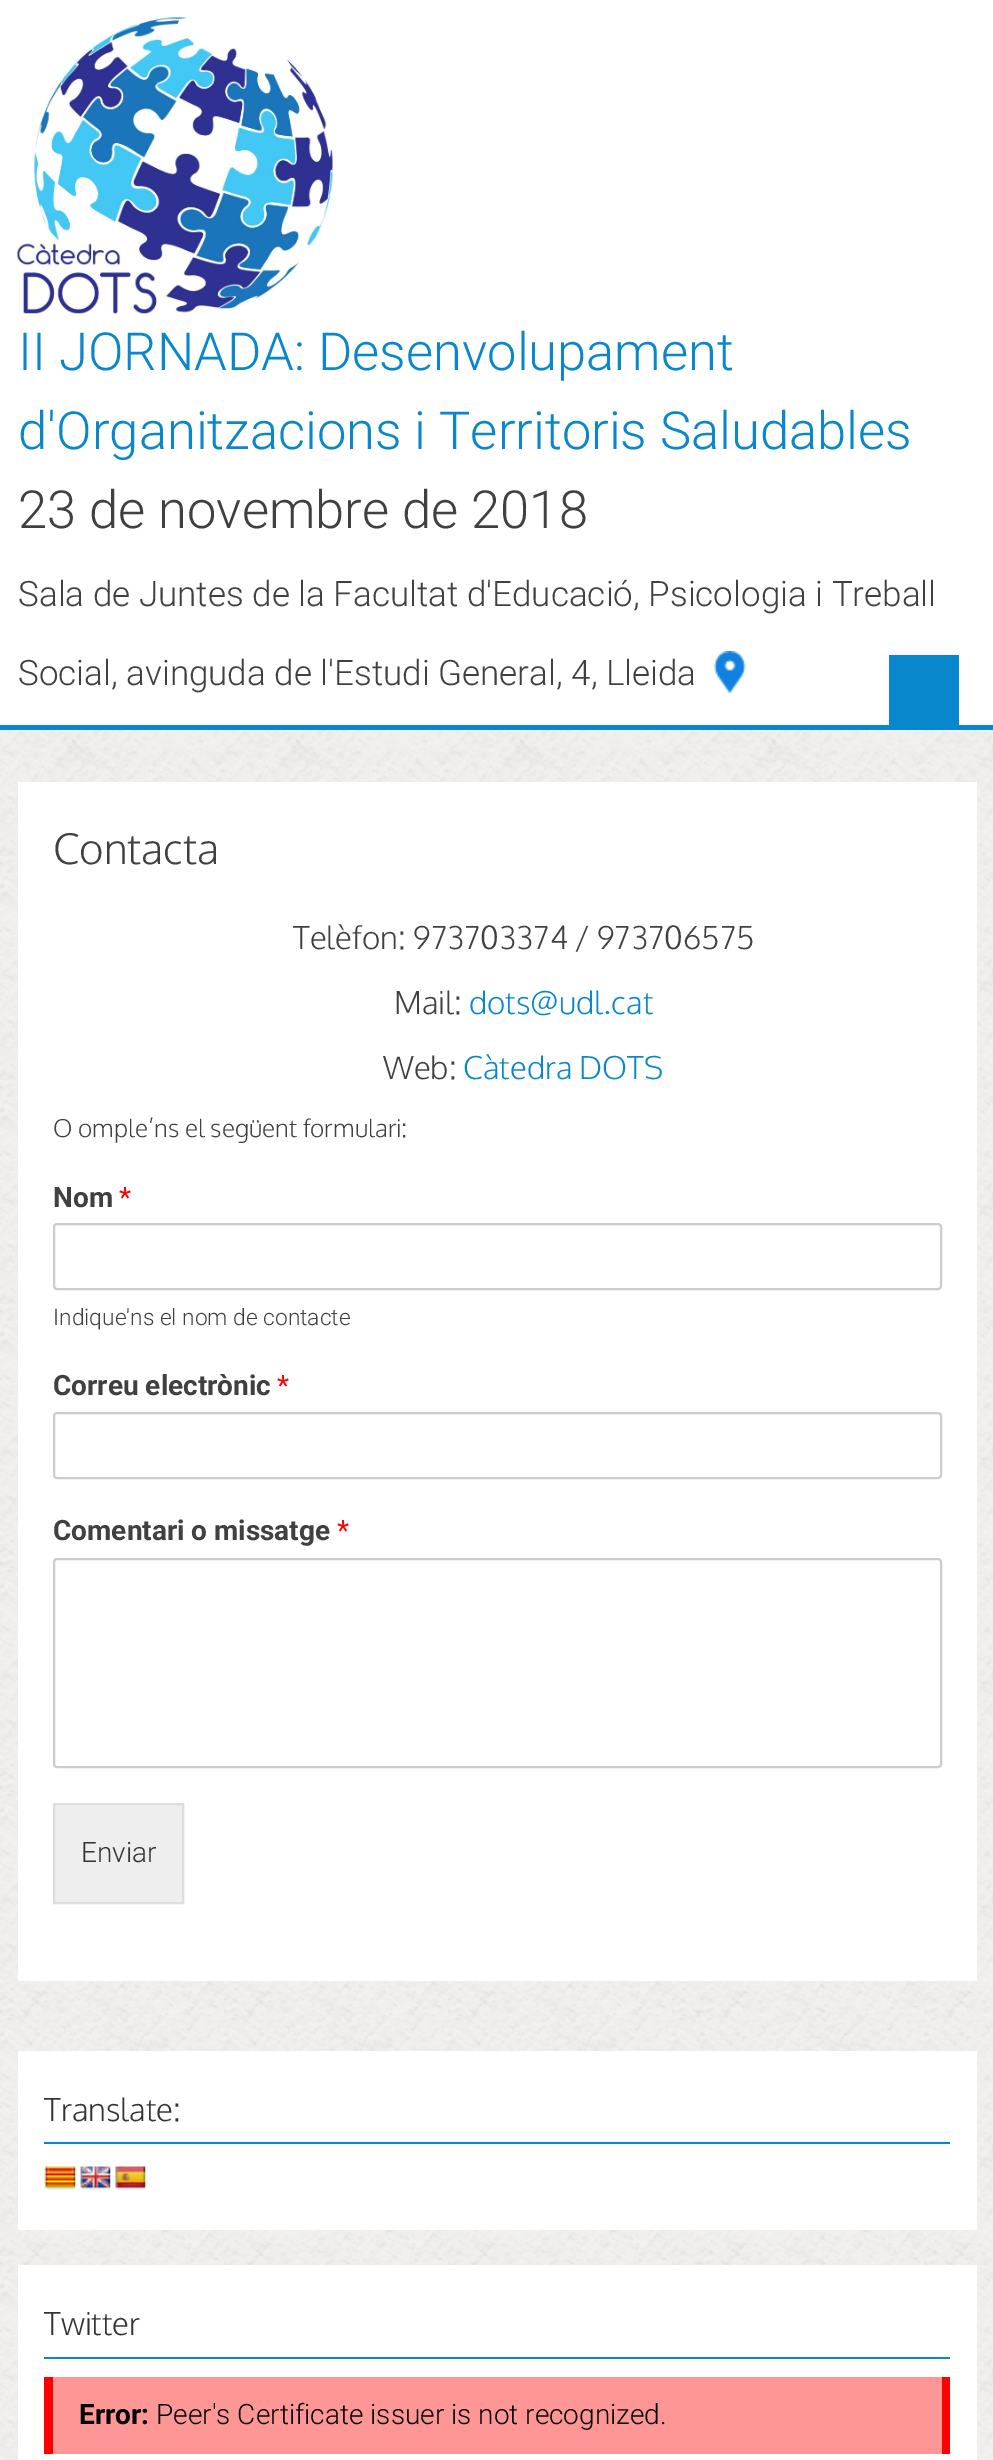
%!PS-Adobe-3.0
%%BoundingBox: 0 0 993 2460
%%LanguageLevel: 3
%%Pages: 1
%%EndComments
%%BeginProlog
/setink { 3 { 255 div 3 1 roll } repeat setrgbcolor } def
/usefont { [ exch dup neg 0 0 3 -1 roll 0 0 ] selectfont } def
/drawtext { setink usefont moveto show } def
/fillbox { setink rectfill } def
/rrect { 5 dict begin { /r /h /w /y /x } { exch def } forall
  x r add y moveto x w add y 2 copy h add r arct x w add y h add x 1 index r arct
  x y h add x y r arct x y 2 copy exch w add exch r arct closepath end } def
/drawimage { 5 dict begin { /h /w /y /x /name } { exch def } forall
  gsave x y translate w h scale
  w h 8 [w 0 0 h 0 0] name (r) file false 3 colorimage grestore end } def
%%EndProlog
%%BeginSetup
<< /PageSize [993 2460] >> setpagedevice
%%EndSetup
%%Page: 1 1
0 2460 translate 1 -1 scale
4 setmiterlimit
0 0 993 2460 255 255 255 fillbox
(assets/img1.rgb) 0 730 993 1730 drawimage
0 725 993 5 8 135 205 fillbox
(assets/img2.rgb) 17 17 316 297 drawimage
(II JORNADA: Desenvolupament) 18 370 /Roboto-Light 52.5 8 135 205 drawtext
(d'Organitzacions i Territoris Saludables) 18 449 /Roboto-Light 52.5 8 135 205 drawtext
(23 de novembre de 2018) 18 528 /Roboto-Light 52.5 64 64 64 drawtext
(Sala de Juntes de la Facultat d'Educació, Psicologia i Treball) 18 606 /Roboto-Light 35 64 64 64 drawtext
(Social, avinguda de l'Estudi General, 4, Lleida) 18 685 /Roboto-Light 35 64 64 64 drawtext
(assets/img3.rgb) 713 651 33 42 drawimage
889 655 70 70 8 135 205 fillbox
18 782 959 1199 255 255 255 fillbox
(Contacta) 53 864 /Oxygen-Light 42 64 64 64 drawtext
(Telèfon: 973703374 / 973706575) 293 949 /Oxygen-Light 31.5 64 64 64 drawtext
(Mail:) 394 1014 /Oxygen-Light 31.5 64 64 64 drawtext
(dots@udl.cat) 469 1014 /Oxygen-Light 31.5 8 135 205 drawtext
(Web:) 383 1079 /Oxygen-Light 31.5 64 64 64 drawtext
(Càtedra DOTS) 463 1079 /Oxygen-Light 31.5 8 135 205 drawtext
(O omple’ns el següent formulari:) 53 1137 /Oxygen-Light 24.5 64 64 64 drawtext
(Nom) 53 1207 /Roboto-Bold 28 64 64 64 drawtext
(*) 119 1207 /Roboto-Regular 28 255 0 0 drawtext
204 204 204 setink
2 setlinewidth
54 1224 887 65 3 rrect stroke
(Indique'ns el nom de contacte) 53 1325 /Roboto-Light 22.75 64 64 64 drawtext
(Correu electrònic) 53 1395 /Roboto-Bold 28 64 64 64 drawtext
(*) 277 1395 /Roboto-Regular 28 255 0 0 drawtext
204 204 204 setink
54 1413 887 65 3 rrect stroke
(Comentari o missatge) 53 1540 /Roboto-Bold 28 64 64 64 drawtext
(*) 337 1540 /Roboto-Regular 28 255 0 0 drawtext
204 204 204 setink
54 1559 887 208 3 rrect stroke
238 238 238 setink
54 1804 moveto 183 1804 lineto 183 1903 lineto 54 1903 lineto closepath gsave fill grestore
221 221 221 setink
stroke
(Enviar) 81 1862 /Roboto-Light 28 51 51 51 drawtext
18 2051 959 179 255 255 255 fillbox
44 2142 906 2 8 135 205 fillbox
(Translate:) 44 2121 /Oxygen-Light 31.5 51 51 51 drawtext
(assets/img4.rgb) 44 2166 32 24 drawimage
(assets/img5.rgb) 80 2166 31 24 drawimage
(assets/img6.rgb) 115 2166 31 24 drawimage
18 2265 959 195 255 255 255 fillbox
44 2357 906 2 8 135 205 fillbox
(Twitter) 44 2335 /Oxygen-Light 31.5 51 51 51 drawtext
53 2377 889 77 255 150 150 fillbox
942 2377 8 77 255 0 0 fillbox
44 2377 9 77 255 0 0 fillbox
(Error:) 79 2424 /Roboto-Bold 28 0 0 0 drawtext
(Peer's Certificate issuer is not recognized.) 156 2424 /Roboto-Light 28 0 0 0 drawtext
showpage
%%EOF
